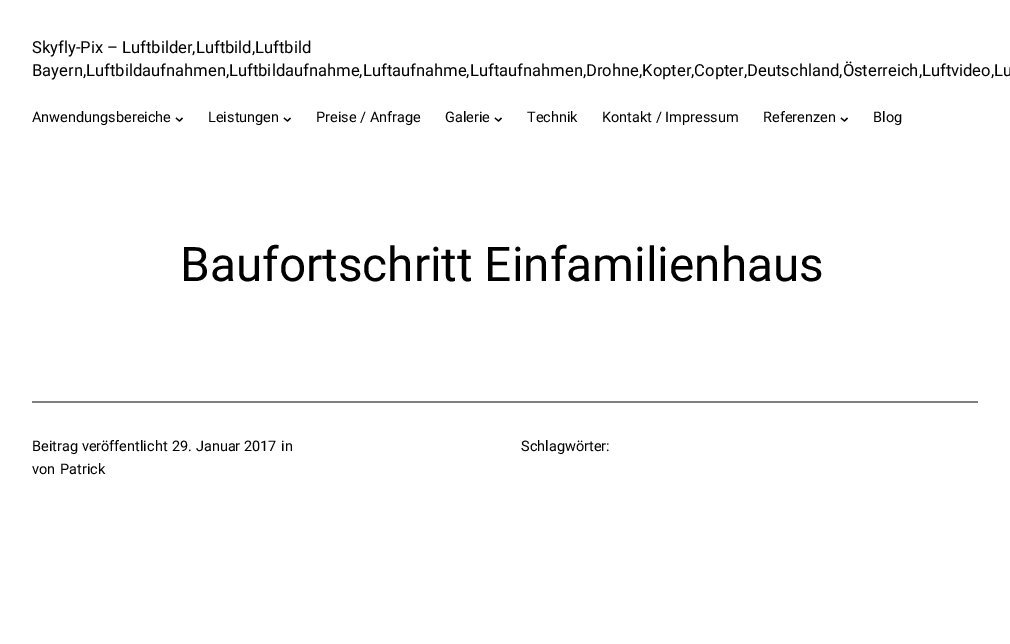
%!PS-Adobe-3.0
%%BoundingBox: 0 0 1010 644
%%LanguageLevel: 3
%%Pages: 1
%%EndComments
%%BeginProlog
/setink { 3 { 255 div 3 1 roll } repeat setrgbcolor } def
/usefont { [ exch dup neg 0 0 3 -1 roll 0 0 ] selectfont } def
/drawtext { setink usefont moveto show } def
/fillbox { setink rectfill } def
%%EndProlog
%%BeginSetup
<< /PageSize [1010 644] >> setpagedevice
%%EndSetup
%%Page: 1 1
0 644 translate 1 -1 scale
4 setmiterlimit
0 0 1010 644 255 255 255 fillbox
(Skyfly-Pix – Luftbilder,Luftbild,Luftbild) 32 53 /Roboto-Regular 16.58 0 0 0 drawtext
(Bayern,Luftbildaufnahmen,Luftbildaufnahme,Luftaufnahme,Luftaufnahmen,Drohne,Kopter,Copter,Deutschland,Österreich,Luftvideo,Lu) 32 76 /Roboto-Regular 16.58 0 0 0 drawtext
(Anwendungsbereiche) 32 122 /Roboto-Regular 14.5 0 0 0 drawtext
1.1 setlinewidth
176 118 moveto 179.5 121 lineto 182.5 118 lineto stroke
(Leistungen) 208 122 /Roboto-Regular 14.5 0 0 0 drawtext
284 118 moveto 287.5 121 lineto 290.5 118 lineto stroke
(Preise / Anfrage) 316 122 /Roboto-Regular 14.5 0 0 0 drawtext
(Galerie) 445 122 /Roboto-Regular 14.5 0 0 0 drawtext
495 118 moveto 498.5 121 lineto 501.5 118 lineto stroke
(Technik) 527 122 /Roboto-Regular 14.5 0 0 0 drawtext
(Kontakt / Impressum) 602 122 /Roboto-Regular 14.5 0 0 0 drawtext
(Referenzen) 763 122 /Roboto-Regular 14.5 0 0 0 drawtext
841 118 moveto 844.5 121 lineto 847.5 118 lineto stroke
(Blog) 873 122 /Roboto-Regular 14.5 0 0 0 drawtext
(Baufortschritt Einfamilienhaus) 180 281 /Roboto-Regular 47.75 0 0 0 drawtext
32 401 946 2 128 128 128 fillbox
(Beitrag veröffentlicht) 32 451 /Roboto-Regular 14.5 0 0 0 drawtext
(29. Januar 2017) 172 451 /Roboto-Regular 14.5 0 0 0 drawtext
(in) 281 451 /Roboto-Regular 14.5 0 0 0 drawtext
(von) 32 474 /Roboto-Regular 14.5 0 0 0 drawtext
(Patrick) 60 474 /Roboto-Regular 14.5 0 0 0 drawtext
(Schlagwörter:) 521 451 /Roboto-Regular 14.5 0 0 0 drawtext
showpage
%%EOF
